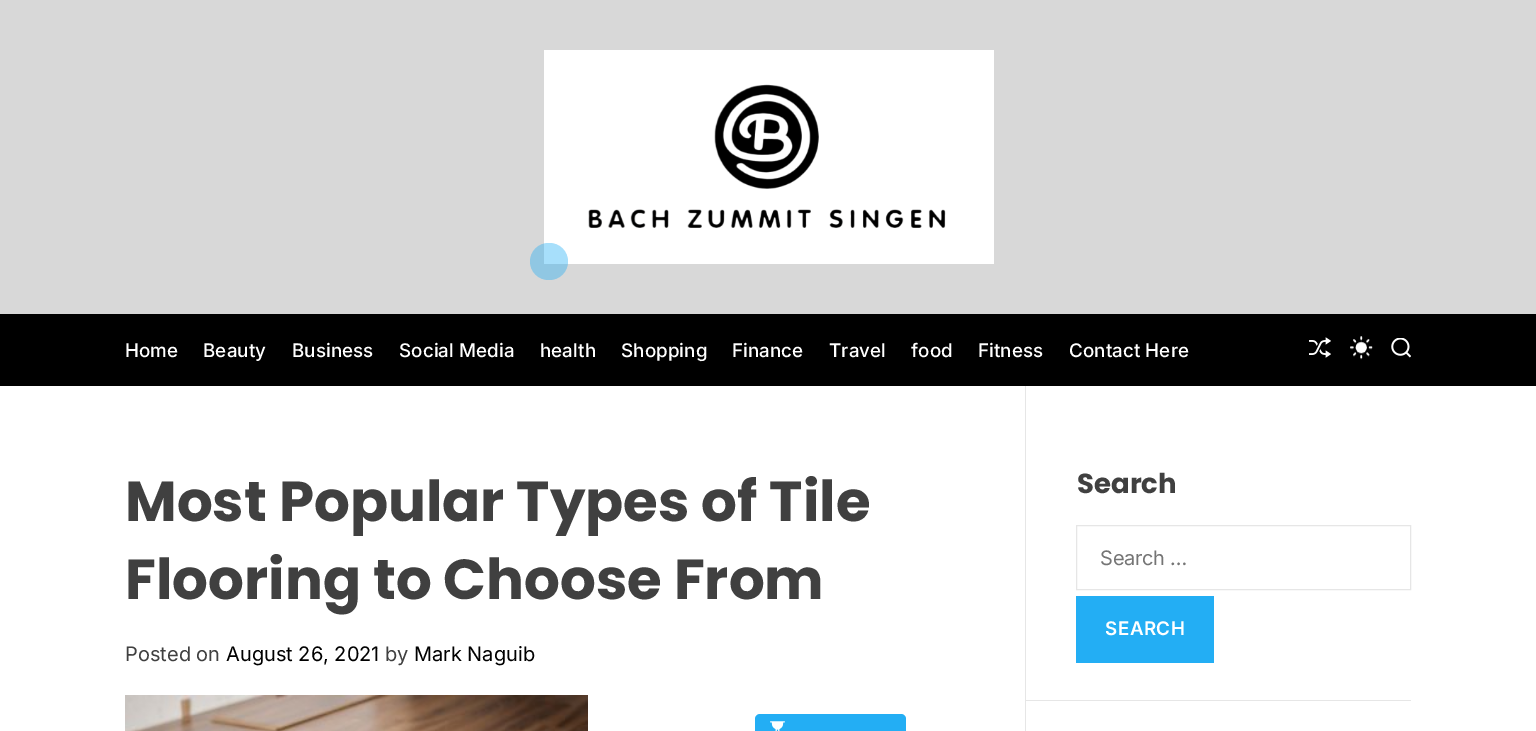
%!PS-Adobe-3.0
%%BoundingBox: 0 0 1536 731
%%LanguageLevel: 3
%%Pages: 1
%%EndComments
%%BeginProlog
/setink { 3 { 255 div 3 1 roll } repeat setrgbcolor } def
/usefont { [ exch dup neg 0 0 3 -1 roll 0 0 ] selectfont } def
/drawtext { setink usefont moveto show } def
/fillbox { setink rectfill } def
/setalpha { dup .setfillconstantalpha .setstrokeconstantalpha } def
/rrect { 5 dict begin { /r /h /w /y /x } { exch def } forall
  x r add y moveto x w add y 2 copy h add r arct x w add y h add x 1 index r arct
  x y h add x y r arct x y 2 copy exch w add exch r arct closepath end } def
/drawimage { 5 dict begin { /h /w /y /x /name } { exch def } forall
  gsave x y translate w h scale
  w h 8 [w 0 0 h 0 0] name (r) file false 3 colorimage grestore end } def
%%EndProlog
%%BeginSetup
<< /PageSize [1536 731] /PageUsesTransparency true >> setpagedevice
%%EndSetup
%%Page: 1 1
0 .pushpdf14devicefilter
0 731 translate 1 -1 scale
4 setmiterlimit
0 0 1536 731 255 255 255 fillbox
0 0 1536 314 216 216 216 fillbox
544 50 450 214 255 255 255 fillbox
0.4 setalpha
35 174 244 setink
530 243 38 37 18.5 rrect fill
1 setalpha
(assets/img1.rgb) 588 84 358 144 drawimage
0 314 1536 72 0 0 0 fillbox
/Inter-Medium 18.75 usefont
255 255 255 setink
125 357 moveto 0.1 0 (Home) ashow
203 357 moveto 0.1 0 (Beauty) ashow
292 357 moveto 0.1 0 (Business) ashow
399 357 moveto 0.1 0 (Social Media) ashow
540 357 moveto 0.1 0 (health) ashow
621 357 moveto 0.1 0 (Shopping) ashow
732 357 moveto 0.1 0 (Finance) ashow
829 357 moveto 0.1 0 (Travel) ashow
911 357 moveto 0.1 0 (food) ashow
978 357 moveto 0.1 0 (Fitness) ashow
1069 357 moveto 0.1 0 (Contact Here) ashow
(assets/img2.rgb) 1309 337 22 21 drawimage
(assets/img3.rgb) 1350 336 23 24 drawimage
(assets/img4.rgb) 1391 338 20 20 drawimage
(Most Popular Types of Tile) 125 521 /Poppins-Bold 56.25 64 64 64 drawtext
(Flooring to Choose From) 125 599 /Poppins-Bold 56.25 64 64 64 drawtext
(Posted on) 125 661 /Inter-Regular 20 64 64 64 drawtext
(August 26, 2021) 226 661 /Inter-Regular 20 0 0 0 drawtext
(by) 385 661 /Inter-Regular 20 64 64 64 drawtext
(Mark Naguib) 414 661 /Inter-Regular 20 0 0 0 drawtext
(assets/img5.rgb) 125 695 463 36 drawimage
35 174 244 setink
755 714 151 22 5 rrect fill
(assets/img6.rgb) 770 721 15 10 drawimage
1025 386 1 345 230 230 230 fillbox
1026 700 385 1 230 230 230 fillbox
(Search) 1077 493 /Poppins-Bold 27.5 64 64 64 drawtext
230 230 230 setink
1076.5 525.5 334 64 rectstroke
/Inter-Regular 20 usefont
117 117 117 setink
1100 565 moveto -0.25 0 (Search …) ashow
1076 596 138 67 35 174 244 fillbox
/Inter-SemiBold 18.75 usefont
255 255 255 setink
1105 635 moveto 0.5 0 (SEARCH) ashow
.poppdf14devicefilter showpage
%%EOF
